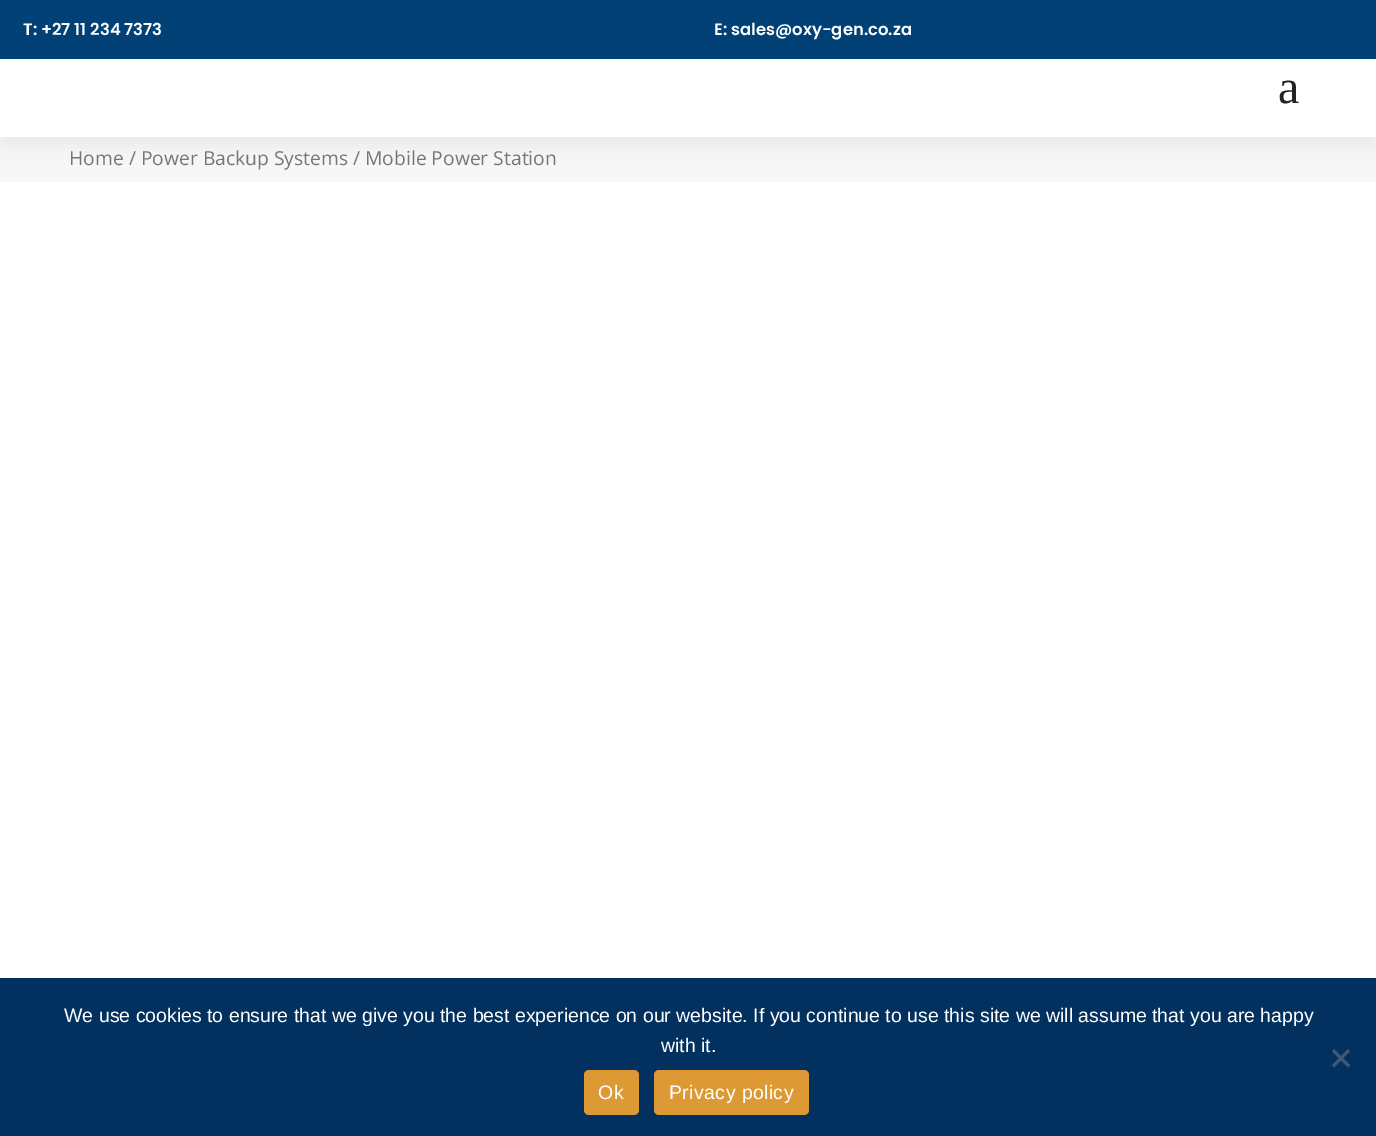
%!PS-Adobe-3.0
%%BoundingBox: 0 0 1376 1136
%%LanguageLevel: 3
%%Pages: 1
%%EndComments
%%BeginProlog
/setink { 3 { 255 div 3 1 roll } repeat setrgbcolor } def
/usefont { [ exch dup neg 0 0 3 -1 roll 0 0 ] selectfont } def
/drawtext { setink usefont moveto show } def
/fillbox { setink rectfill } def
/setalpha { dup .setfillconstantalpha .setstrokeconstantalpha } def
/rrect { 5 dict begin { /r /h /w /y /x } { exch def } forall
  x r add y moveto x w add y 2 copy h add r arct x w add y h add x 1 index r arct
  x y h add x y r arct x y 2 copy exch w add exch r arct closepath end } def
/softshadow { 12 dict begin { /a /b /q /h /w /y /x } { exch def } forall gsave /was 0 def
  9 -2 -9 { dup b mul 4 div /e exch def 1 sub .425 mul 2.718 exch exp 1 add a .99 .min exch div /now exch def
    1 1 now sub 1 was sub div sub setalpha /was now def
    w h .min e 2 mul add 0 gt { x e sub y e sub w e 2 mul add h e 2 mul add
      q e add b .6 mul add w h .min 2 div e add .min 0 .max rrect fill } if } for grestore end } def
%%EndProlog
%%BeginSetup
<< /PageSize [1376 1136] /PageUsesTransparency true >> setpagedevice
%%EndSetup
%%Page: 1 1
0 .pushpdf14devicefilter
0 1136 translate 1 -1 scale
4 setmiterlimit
0 0 1376 1136 255 255 255 fillbox
0 0 1376 59 1 65 117 fillbox
(T: +27 11 234 7373) 23 35 /Poppins-SemiBold 16.5 255 255 255 drawtext
0 137 1376 45 247 247 247 fillbox
0 0 0 setink
0 68 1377 78 0 10 0.06 softshadow
(E: sales@oxy-gen.co.za) 714 35 /Poppins-SemiBold 16.5 255 255 255 drawtext
0 59 1376 78 255 255 255 fillbox
(a) 1278 103 /LiberationSerif-Regular 48 35 35 35 drawtext
(Home / Power Backup Systems / Mobile Power Station) 69 165 /OpenSans-Regular 19.3 118 118 118 drawtext
0 978 1376 158 2 49 95 fillbox
(We use cookies to ensure that we give you the best experience on our website. If you continue to use this site we will assume that you are happy) 64 1022 /LiberationSans-Regular 19.5 255 255 255 drawtext
(with it.) 661 1052 /LiberationSans-Regular 19.5 255 255 255 drawtext
65 89 112 setink
1348 1049 moveto 1350 1051.5 lineto 1334 1067.5 lineto 1332 1065 lineto closepath fill
1332 1051.5 moveto 1334 1049 lineto 1350 1065 lineto 1348 1067.5 lineto closepath fill
221 153 51 setink
584 1070 55 45 5 rrect fill
255 255 255 setink
598 1099 moveto 0.4 0 (Ok) ashow
221 153 51 setink
654 1070 155 45 5 rrect fill
255 255 255 setink
669 1099 moveto 0.4 0 (Privacy policy) ashow
.poppdf14devicefilter showpage
%%EOF
